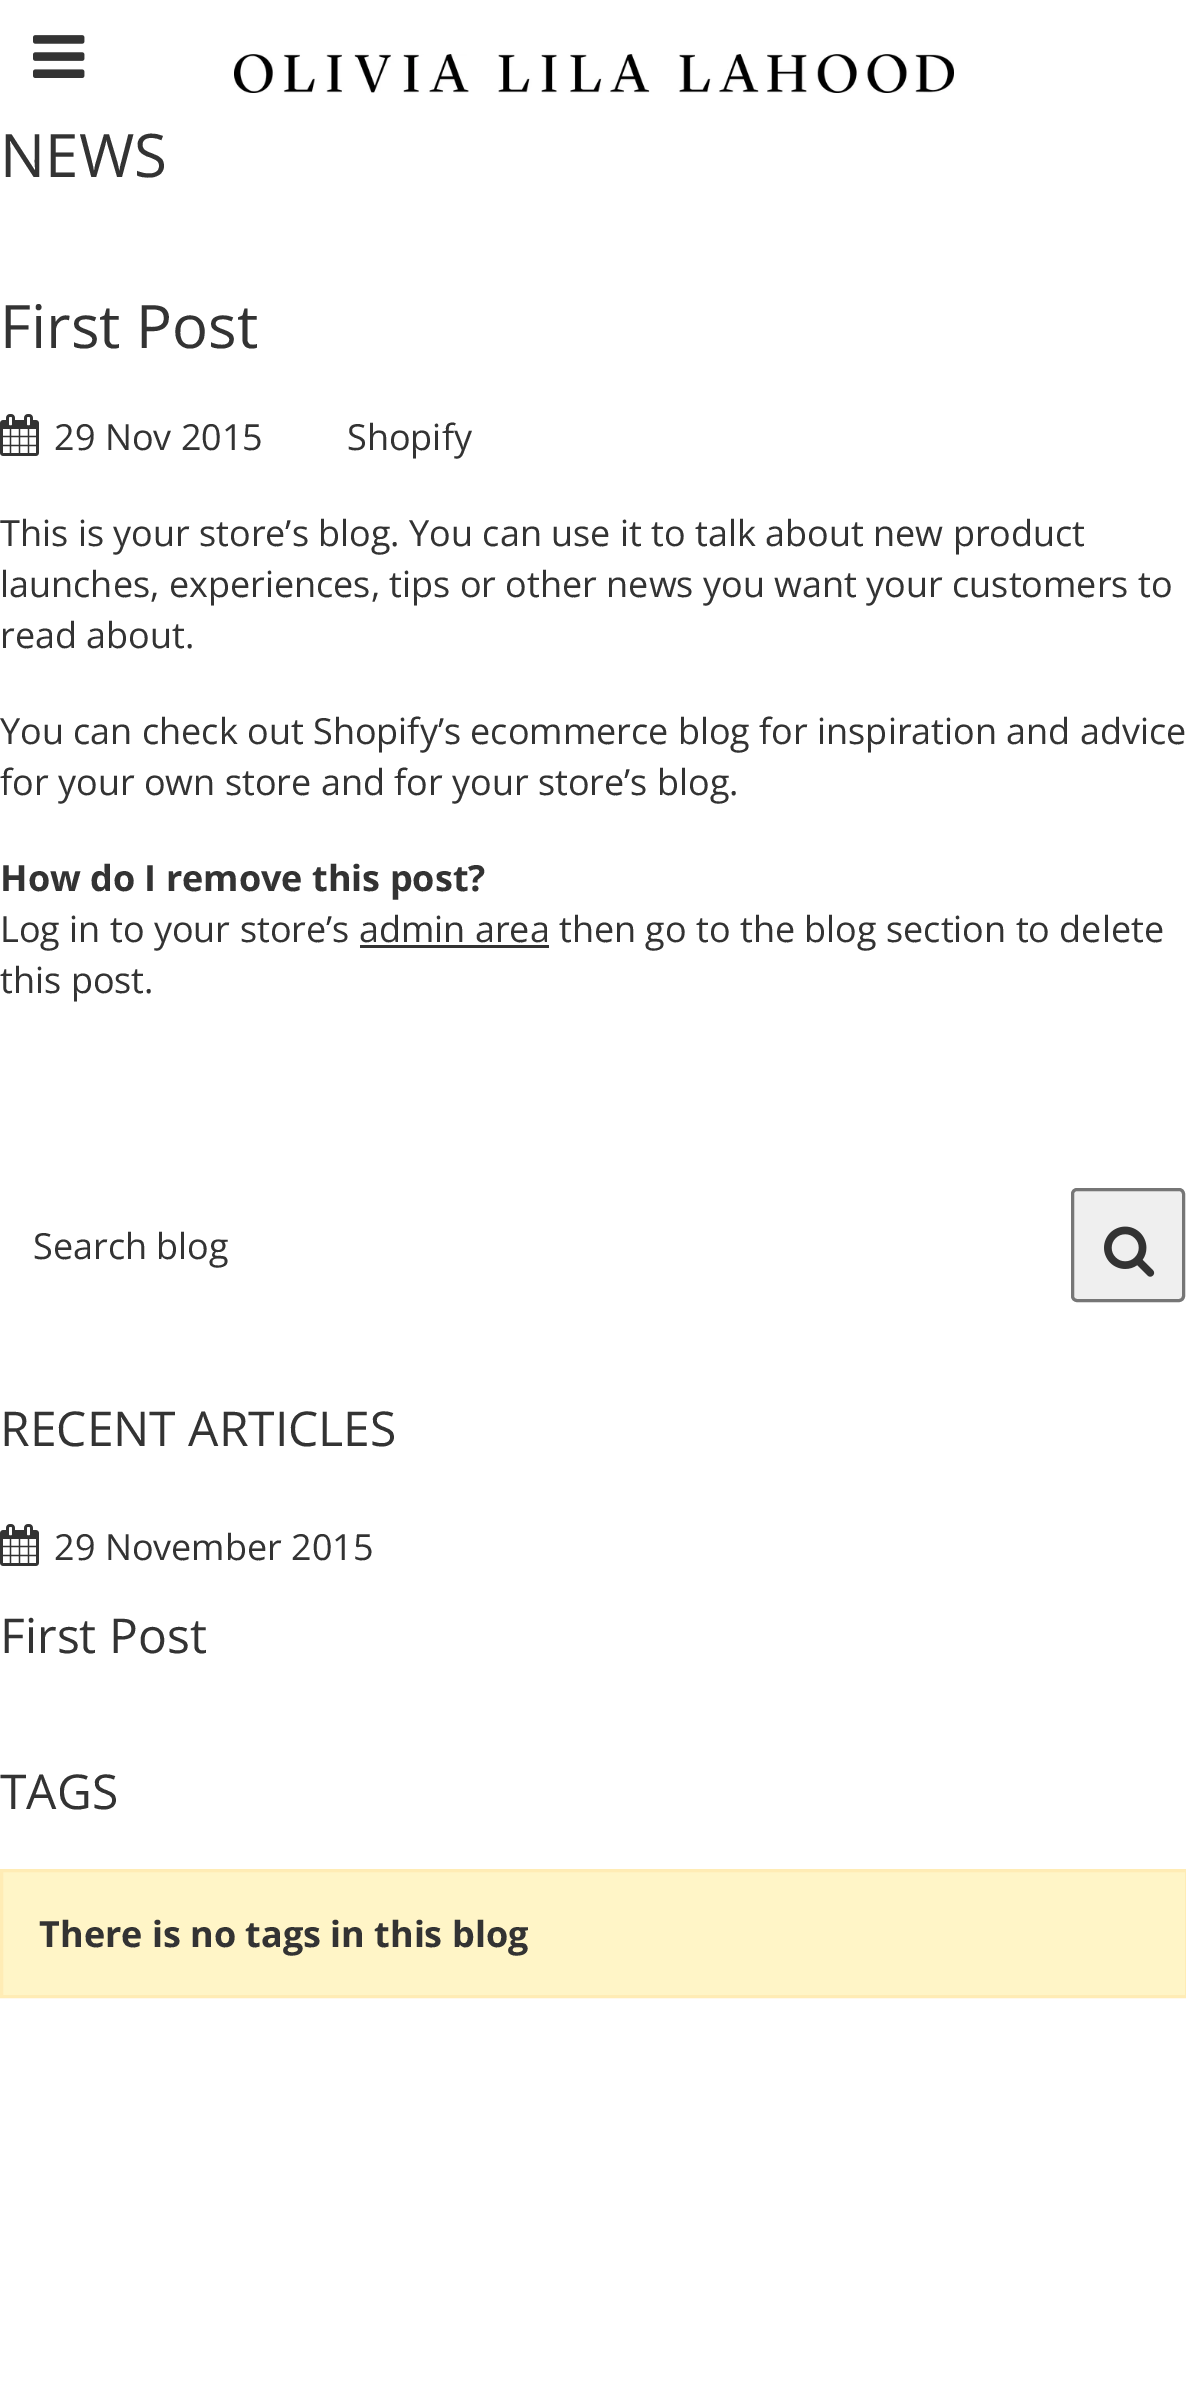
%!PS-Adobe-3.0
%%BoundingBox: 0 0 1186 2406
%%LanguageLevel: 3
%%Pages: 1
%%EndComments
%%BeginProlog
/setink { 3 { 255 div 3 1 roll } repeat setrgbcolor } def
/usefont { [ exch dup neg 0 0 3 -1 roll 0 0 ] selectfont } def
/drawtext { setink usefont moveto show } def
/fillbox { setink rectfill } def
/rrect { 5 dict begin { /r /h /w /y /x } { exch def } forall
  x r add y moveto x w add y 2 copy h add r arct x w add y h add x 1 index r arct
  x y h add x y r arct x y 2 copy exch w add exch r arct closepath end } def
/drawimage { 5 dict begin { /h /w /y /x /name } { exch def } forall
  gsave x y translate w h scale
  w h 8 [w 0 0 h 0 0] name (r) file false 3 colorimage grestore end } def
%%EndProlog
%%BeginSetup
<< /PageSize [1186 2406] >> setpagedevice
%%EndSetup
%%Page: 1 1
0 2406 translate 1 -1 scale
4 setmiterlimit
0 0 1186 2406 255 255 255 fillbox
(assets/img1.rgb) 33 35 52 43 drawimage
(assets/img2.rgb) 234 54 720 39 drawimage
(NEWS) 0 177 /OpenSans-Regular 60 51 51 51 drawtext
(First Post) 0 348 /OpenSans-Regular 60 51 51 51 drawtext
(assets/img3.rgb) 0 414 39 42 drawimage
(29 Nov 2015) 54 450 /OpenSans-Regular 36 51 51 51 drawtext
(Shopify) 347 450 /OpenSans-Regular 36 51 51 51 drawtext
(This is your store’s blog. You can use it to talk about new product) 0 546 /OpenSans-Regular 36 51 51 51 drawtext
(launches, experiences, tips or other news you want your customers to) 0 597 /OpenSans-Regular 36 51 51 51 drawtext
(read about.) 0 648 /OpenSans-Regular 36 51 51 51 drawtext
(You can check out Shopify’s ecommerce blog for inspiration and advice) 0 744 /OpenSans-Regular 36 51 51 51 drawtext
(for your own store and for your store’s blog.) 0 795 /OpenSans-Regular 36 51 51 51 drawtext
(How do I remove this post?) 0 891 /OpenSans-Bold 36 51 51 51 drawtext
(Log in to your store’s admin area then go to the blog section to delete) 0 942 /OpenSans-Regular 36 51 51 51 drawtext
360 945 189 3 51 51 51 fillbox
(this post.) 0 993 /OpenSans-Regular 36 51 51 51 drawtext
(Search blog) 33 1259 /OpenSans-Regular 36 51 51 51 drawtext
239 239 239 setink
1072.5 1189.5 111 111 4.5 rrect gsave fill grestore
118 118 118 setink
3 setlinewidth
stroke
(assets/img4.rgb) 1104 1226 51 51 drawimage
(RECENT ARTICLES) 0 1446 /OpenSans-Regular 48 51 51 51 drawtext
(assets/img3.rgb) 0 1524 39 42 drawimage
(29 November 2015) 54 1560 /OpenSans-Regular 36 51 51 51 drawtext
(First Post) 0 1653 /OpenSans-Regular 48 51 51 51 drawtext
(TAGS) 0 1809 /OpenSans-Regular 48 51 51 51 drawtext
255 245 199 setink
1.5 1870.5 moveto 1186.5 1870.5 lineto 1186.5 1996.5 lineto 1.5 1996.5 lineto closepath gsave fill grestore
255 236 181 setink
stroke
(There is no tags in this blog) 39 1947 /OpenSans-Bold 36 51 51 51 drawtext
showpage
%%EOF
